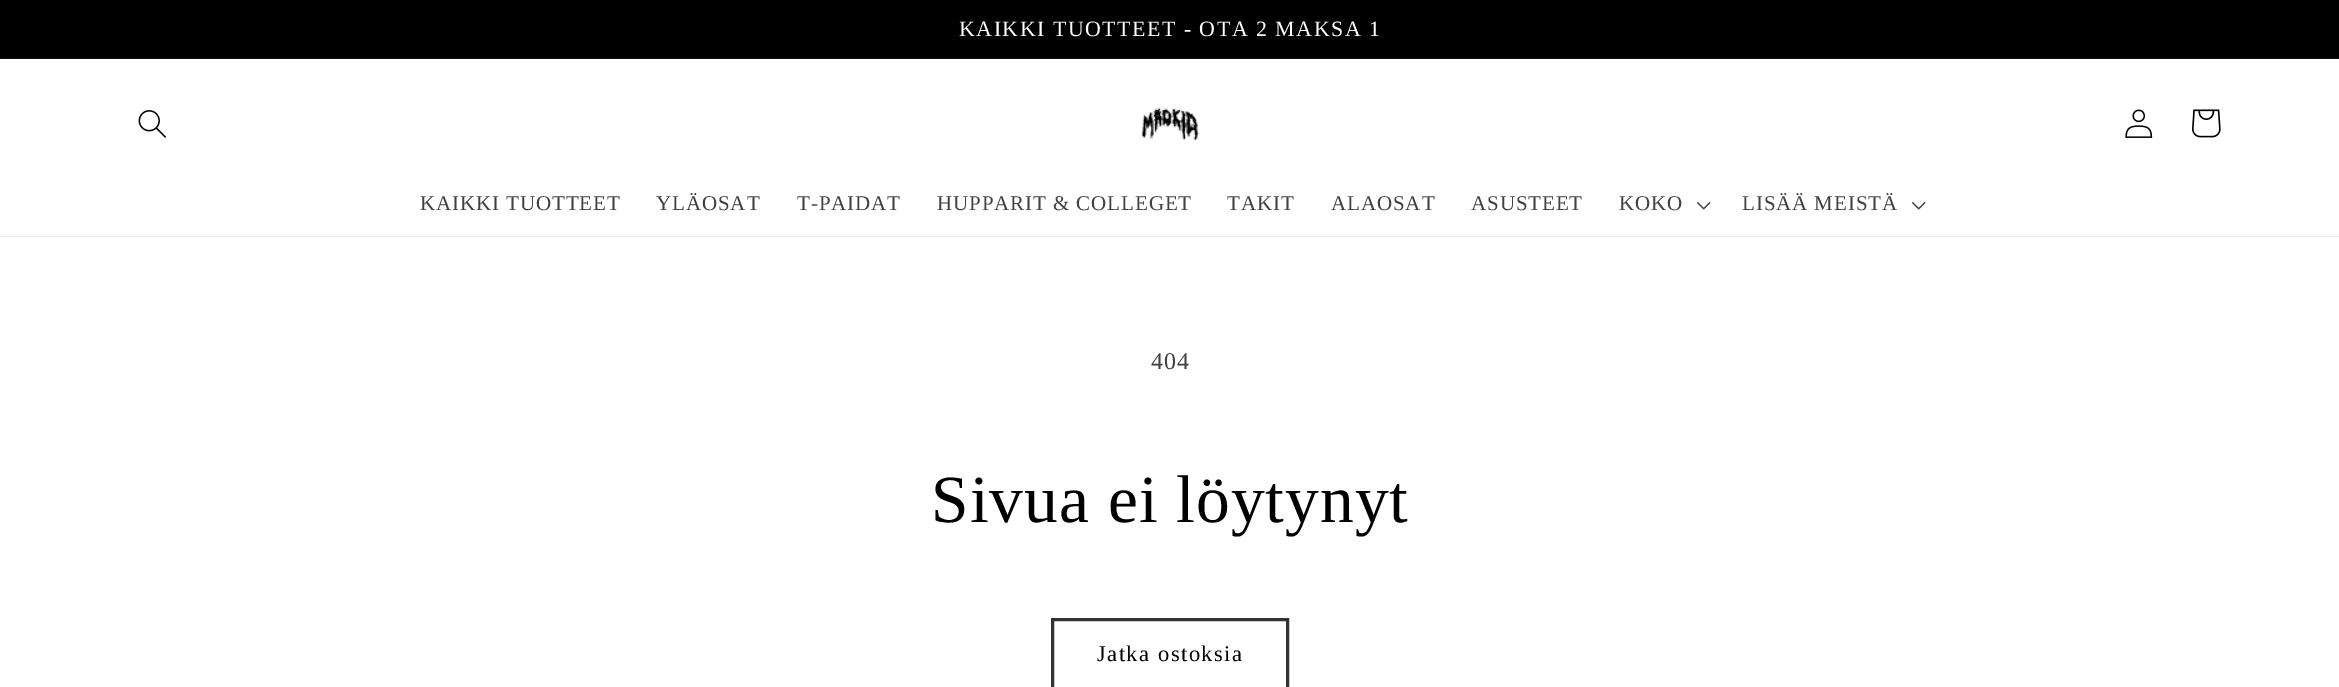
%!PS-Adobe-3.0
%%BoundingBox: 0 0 2339 687
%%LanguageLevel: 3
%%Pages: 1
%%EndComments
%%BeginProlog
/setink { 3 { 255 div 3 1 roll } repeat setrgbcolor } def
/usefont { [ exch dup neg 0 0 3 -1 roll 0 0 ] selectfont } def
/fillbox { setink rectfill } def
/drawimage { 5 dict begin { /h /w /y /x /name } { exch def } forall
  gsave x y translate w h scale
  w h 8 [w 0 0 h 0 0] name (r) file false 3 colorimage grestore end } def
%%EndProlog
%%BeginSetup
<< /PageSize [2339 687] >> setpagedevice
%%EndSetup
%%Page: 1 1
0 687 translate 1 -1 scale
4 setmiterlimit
0 0 2339 687 255 255 255 fillbox
0 0 2339 58 0 0 0 fillbox
0 58 2339 1 20 20 20 fillbox
/LiberationSerif-Regular 21.9 usefont
255 255 255 setink
959 36 moveto 1.5 0 (KAIKKI TUOTTEET - OTA 2 MAKSA 1) ashow
0 236 2339 1 235 235 235 fillbox
(assets/img1.rgb) 138 110 28 28 drawimage
(assets/img2.rgb) 1141 107 58 34 drawimage
(assets/img3.rgb) 2125 109 28 29 drawimage
(assets/img4.rgb) 2192 109 29 29 drawimage
/LiberationSerif-Regular 21 usefont
64 64 64 setink
420 210 moveto 0.9 0 (KAIKKI TUOTTEET) ashow
656 210 moveto 0.9 0 (YLÄOSAT) ashow
797 210 moveto 0.9 0 (T-PAIDAT) ashow
937 210 moveto 0.9 0 (HUPPARIT & COLLEGET) ashow
1227 210 moveto 0.9 0 (TAKIT) ashow
1331 210 moveto 0.9 0 (ALAOSAT) ashow
1471 210 moveto 0.9 0 (ASUSTEET) ashow
1619 210 moveto 0.9 0 (KOKO) ashow
(assets/img5.rgb) 1697 202 14 8 drawimage
1742 210 moveto 0.9 0 (LISÄÄ MEISTÄ) ashow
(assets/img5.rgb) 1912 202 14 8 drawimage
/LiberationSerif-Regular 24 usefont
1151 369 moveto 0.9 0 (404) ashow
/LiberationSerif-Regular 67.5 usefont
0 0 0 setink
931 522 moveto 1 0 (Sivua ei löytynyt) ashow
51 51 51 setink
3 setlinewidth
1052.5 619.5 235 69 rectstroke
/LiberationSerif-Regular 22.5 usefont
0 0 0 setink
1097 661 moveto 1.5 0 (Jatka ostoksia) ashow
showpage
%%EOF
